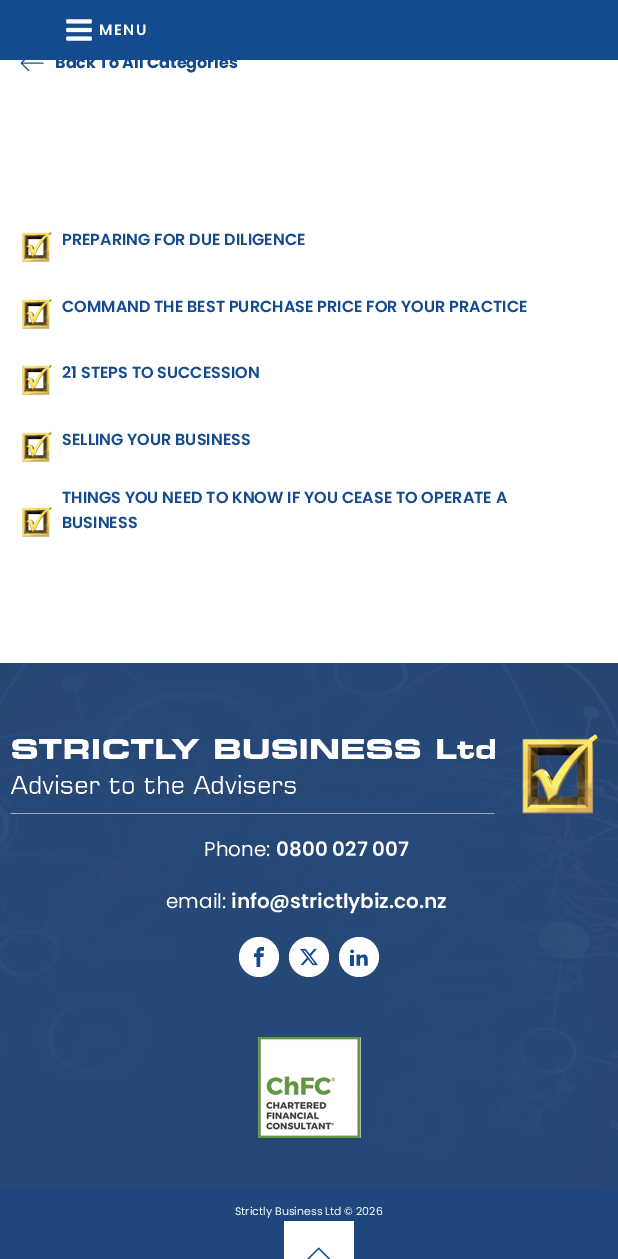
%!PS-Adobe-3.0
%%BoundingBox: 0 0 618 1259
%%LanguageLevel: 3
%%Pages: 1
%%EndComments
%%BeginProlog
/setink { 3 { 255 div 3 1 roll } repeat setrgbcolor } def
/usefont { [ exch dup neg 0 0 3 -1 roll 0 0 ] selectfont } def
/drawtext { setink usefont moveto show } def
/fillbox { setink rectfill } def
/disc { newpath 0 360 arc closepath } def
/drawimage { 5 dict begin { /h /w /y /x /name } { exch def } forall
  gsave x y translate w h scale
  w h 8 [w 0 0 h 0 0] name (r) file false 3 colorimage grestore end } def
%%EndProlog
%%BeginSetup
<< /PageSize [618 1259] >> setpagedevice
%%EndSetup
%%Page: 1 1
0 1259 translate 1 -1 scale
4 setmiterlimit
0 0 618 1259 255 255 255 fillbox
0 0 618 60 19 75 142 fillbox
(assets/img1.rgb) 66 19 26 22 drawimage
/Poppins-SemiBold 15 usefont
255 255 255 setink
99 35 moveto 1.5 0 (MENU) ashow
(assets/img2.rgb) 20 60 24 12 drawimage
(Back To All Categories) 55 68 /Poppins-Bold 16 19 75 142 drawtext
(assets/img3.rgb) 22 231 30 31 drawimage
(PREPARING FOR DUE DILIGENCE) 62 245 /Poppins-SemiBold 16 19 75 142 drawtext
(assets/img3.rgb) 22 298 30 31 drawimage
(COMMAND THE BEST PURCHASE PRICE FOR YOUR PRACTICE) 62 312 /Poppins-SemiBold 16 19 75 142 drawtext
(assets/img3.rgb) 22 364 30 31 drawimage
(21 STEPS TO SUCCESSION) 62 378 /Poppins-SemiBold 16 19 75 142 drawtext
(assets/img3.rgb) 22 431 30 31 drawimage
(SELLING YOUR BUSINESS) 62 445 /Poppins-SemiBold 16 19 75 142 drawtext
(assets/img3.rgb) 22 506 30 31 drawimage
(THINGS YOU NEED TO KNOW IF YOU CEASE TO OPERATE A) 62 503 /Poppins-SemiBold 16 19 75 142 drawtext
(BUSINESS) 62 528 /Poppins-SemiBold 16 19 75 142 drawtext
(assets/img4.rgb) 0 663 618 525 drawimage
(assets/img5.rgb) 10 733 589 81 drawimage
(Phone:) 204 856 /Poppins-Regular 20 255 255 255 drawtext
(0800 027 007) 276 856 /Poppins-SemiBold 20 255 255 255 drawtext
(email:) 166 908 /Poppins-Regular 20 255 255 255 drawtext
(info@strictlybiz.co.nz) 231 908 /Poppins-SemiBold 20 255 255 255 drawtext
259 957 20 disc fill
(assets/img6.rgb) 254 947 10 20 drawimage
309 957 20 disc fill
(assets/img7.rgb) 300 948 18 18 drawimage
359 957 20 disc fill
(assets/img8.rgb) 350 949 18 17 drawimage
(assets/img9.rgb) 258 1037 103 101 drawimage
0 1188 618 71 32 71 125 fillbox
(Strictly Business Ltd © 2026) 235 1215 /Poppins-Regular 11 255 255 255 drawtext
284 1221 70 38 255 255 255 fillbox
(assets/img10.rgb) 307 1247 24 12 drawimage
showpage
%%EOF
